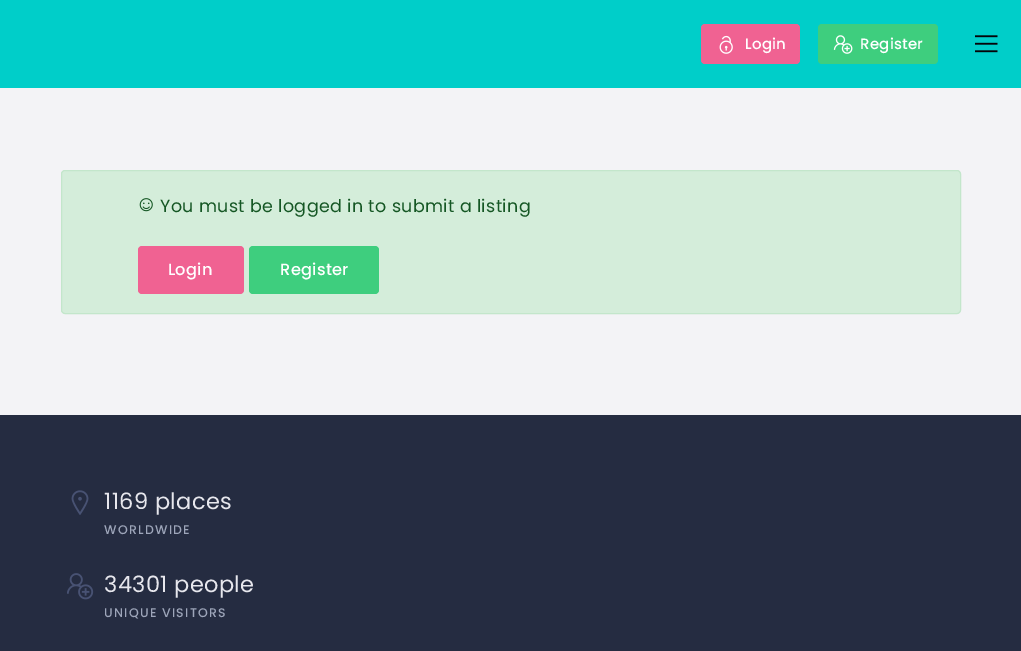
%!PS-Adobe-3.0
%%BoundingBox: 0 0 1021 651
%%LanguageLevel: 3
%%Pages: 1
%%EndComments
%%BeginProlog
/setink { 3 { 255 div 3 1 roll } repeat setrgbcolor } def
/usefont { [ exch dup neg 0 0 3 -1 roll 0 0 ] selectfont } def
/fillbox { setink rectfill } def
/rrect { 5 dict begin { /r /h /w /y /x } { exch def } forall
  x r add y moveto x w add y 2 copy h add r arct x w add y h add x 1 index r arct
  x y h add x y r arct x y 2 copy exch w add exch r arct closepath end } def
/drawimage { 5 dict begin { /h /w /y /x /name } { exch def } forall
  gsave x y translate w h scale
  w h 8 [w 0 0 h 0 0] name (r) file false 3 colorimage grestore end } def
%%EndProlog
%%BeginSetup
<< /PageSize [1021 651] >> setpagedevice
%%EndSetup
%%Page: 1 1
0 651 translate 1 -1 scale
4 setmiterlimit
0 0 1021 651 243 243 246 fillbox
0 0 1021 88 0 206 201 fillbox
240 98 146 setink
701 24 99 40 4 rrect fill
(assets/img1.rgb) 719 35 14 19 drawimage
/Poppins-Medium 15 usefont
255 255 255 setink
745 49 moveto 0.25 0 (Login) ashow
62 206 126 setink
818 24 120 40 4 rrect fill
(assets/img2.rgb) 833 35 20 19 drawimage
255 255 255 setink
860 49 moveto 0.25 0 (Register) ashow
(assets/img3.rgb) 975 35 23 18 drawimage
212 237 218 setink
61.5 170.5 899 143 3.5 rrect gsave fill grestore
195 230 203 setink
stroke
(assets/img4.rgb) 139 198 14 14 drawimage
/Poppins-Regular 17.5 usefont
21 87 36 setink
160 212 moveto 0.35 0 (You must be logged in to submit a listing) ashow
240 98 146 setink
138 246 106 48 4 rrect fill
/Poppins-Medium 16.25 usefont
255 255 255 setink
168 275 moveto 0.25 0 (Login) ashow
62 206 126 setink
249 246 130 48 4 rrect fill
255 255 255 setink
280 275 moveto 0.25 0 (Register) ashow
0 415 1021 236 37 44 65 fillbox
(assets/img5.rgb) 71 490 18 25 drawimage
/Poppins-Regular 22.5 usefont
231 231 237 setink
104 509 moveto 0.35 0 (1169 places) ashow
/Poppins-Medium 12.5 usefont
158 166 186 setink
104 534 moveto 1.25 0 (WORLDWIDE) ashow
(assets/img6.rgb) 67 573 27 27 drawimage
/Poppins-Regular 22.5 usefont
231 231 237 setink
104 592 moveto 0.35 0 (34301 people) ashow
/Poppins-Medium 12.5 usefont
158 166 186 setink
104 617 moveto 1.25 0 (UNIQUE VISITORS) ashow
showpage
%%EOF
